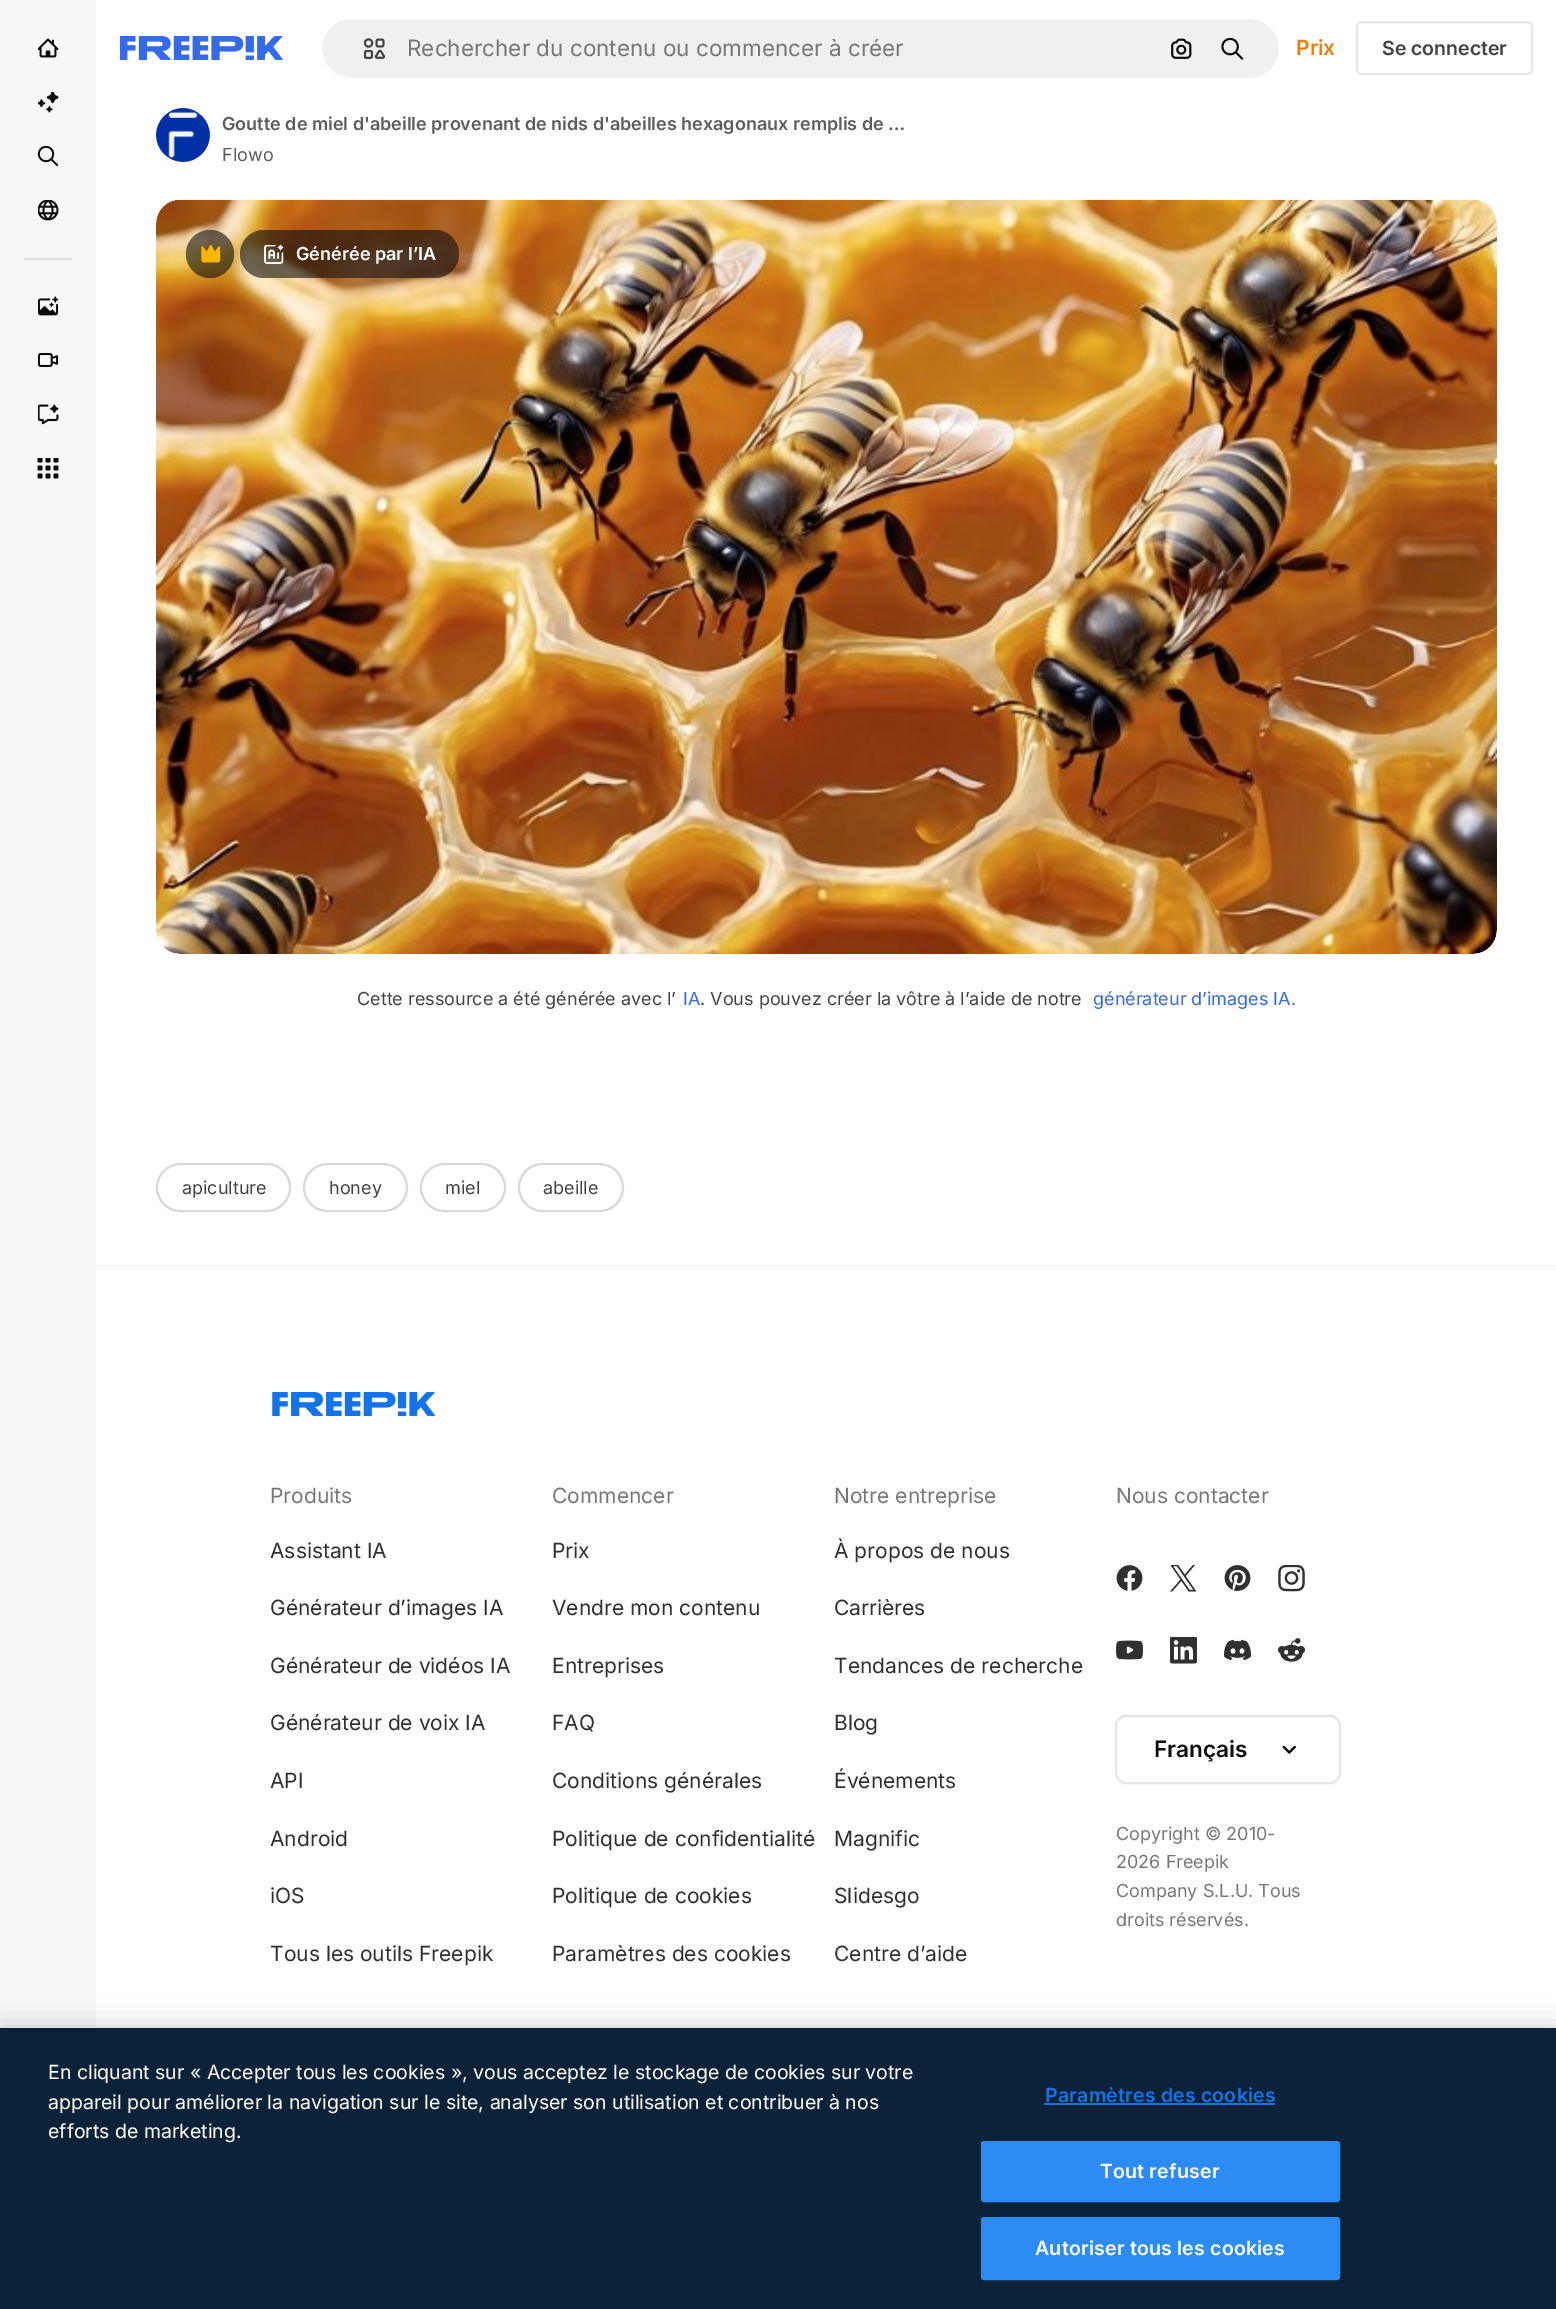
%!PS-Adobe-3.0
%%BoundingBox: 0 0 1556 2309
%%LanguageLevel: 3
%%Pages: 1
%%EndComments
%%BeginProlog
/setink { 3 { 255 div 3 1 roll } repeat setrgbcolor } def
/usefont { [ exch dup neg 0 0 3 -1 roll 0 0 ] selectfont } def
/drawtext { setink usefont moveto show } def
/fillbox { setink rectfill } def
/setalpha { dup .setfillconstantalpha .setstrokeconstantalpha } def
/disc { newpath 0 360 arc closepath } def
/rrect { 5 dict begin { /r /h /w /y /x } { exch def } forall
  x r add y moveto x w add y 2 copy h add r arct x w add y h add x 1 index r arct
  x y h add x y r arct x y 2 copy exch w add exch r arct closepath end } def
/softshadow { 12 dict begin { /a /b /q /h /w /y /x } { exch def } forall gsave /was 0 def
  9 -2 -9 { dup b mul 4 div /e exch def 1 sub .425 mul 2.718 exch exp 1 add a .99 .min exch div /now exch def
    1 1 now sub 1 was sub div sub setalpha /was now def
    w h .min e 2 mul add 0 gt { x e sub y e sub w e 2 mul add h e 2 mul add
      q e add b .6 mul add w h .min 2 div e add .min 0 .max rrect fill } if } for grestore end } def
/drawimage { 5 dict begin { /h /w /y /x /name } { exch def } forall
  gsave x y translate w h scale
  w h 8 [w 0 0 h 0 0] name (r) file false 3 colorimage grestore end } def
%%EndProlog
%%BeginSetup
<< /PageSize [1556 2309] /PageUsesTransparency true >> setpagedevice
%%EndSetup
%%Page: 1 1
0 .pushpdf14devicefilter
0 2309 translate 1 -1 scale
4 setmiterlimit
0 0 1556 2309 255 255 255 fillbox
0 0 96 2028 247 247 247 fillbox
(assets/img1.rgb) 38 38 21 20 drawimage
(assets/img2.rgb) 38 92 21 21 drawimage
(assets/img3.rgb) 37 146 22 21 drawimage
(assets/img4.rgb) 38 200 21 21 drawimage
24 258 48 2 224 224 224 fillbox
(assets/img5.rgb) 38 296 21 20 drawimage
(assets/img6.rgb) 38 353 21 14 drawimage
(assets/img7.rgb) 38 404 21 21 drawimage
(assets/img8.rgb) 37 458 22 21 drawimage
(assets/img9.rgb) 120 36 163 24 drawimage
240 240 240 setink
321 18 959 61 30.5 rrect gsave fill grestore
255 255 255 setink
2 setlinewidth
stroke
(assets/img10.rgb) 363 38 23 21 drawimage
(Rechercher du contenu ou commencer à créer) 407 56 /Inter-Regular 22.5 119 119 119 drawtext
(assets/img11.rgb) 1171 38 21 21 drawimage
(assets/img12.rgb) 1221 38 23 22 drawimage
(Prix) 1296 55 /Inter-SemiBold 21 234 126 17 drawtext
231 231 231 setink
1357 22 175 52 5 rrect stroke
(Se connecter) 1382 55 /Inter-SemiBold 19.5 66 66 66 drawtext
(assets/img13.rgb) 156 108 54 54 drawimage
(Goutte de miel d'abeille provenant de nids d'abeilles hexagonaux remplis de …) 222 130 /Inter-SemiBold 18 92 92 92 drawtext
(Flowo) 222 161 /Inter-Regular 18 92 92 92 drawtext
(assets/img14.rgb) 156 199 1341 755 drawimage
0.6 setalpha
13 13 13 setink
210 254 24 disc fill
1 setalpha
(assets/img15.rgb) 201 245 20 18 drawimage
0.6 setalpha
240 230 219 48 24 rrect fill
1 setalpha
(assets/img16.rgb) 264 245 20 19 drawimage
(Générée par l’IA) 296 260 /Inter-SemiBold 18 255 255 255 drawtext
(Cette ressource a été générée avec l’) 357 1005 /Inter-Regular 18 66 66 66 drawtext
(IA) 683 1005 /Inter-Regular 18 52 106 234 drawtext
(. Vous pouvez créer la vôtre à l’aide de notre) 700 1005 /Inter-Regular 18 66 66 66 drawtext
(générateur d’images IA.) 1093 1005 /Inter-Regular 18 52 106 234 drawtext
216 216 216 setink
157 1164 133 47 23.5 rrect stroke
(apiculture) 182 1194 /Inter-Regular 18 66 66 66 drawtext
216 216 216 setink
304 1164 103 47 23.5 rrect stroke
(honey) 329 1194 /Inter-Regular 18 66 66 66 drawtext
216 216 216 setink
421 1164 84 47 23.5 rrect stroke
(miel) 445 1194 /Inter-Regular 18 66 66 66 drawtext
216 216 216 setink
519 1164 104 47 23.5 rrect stroke
(abeille) 543 1194 /Inter-Regular 18 66 66 66 drawtext
96 1265 1460 1 240 240 240 fillbox
(assets/img17.rgb) 272 1392 164 24 drawimage
(Produits) 270 1503 /Inter-Regular 21 119 119 119 drawtext
(Assistant IA) 270 1558 /Inter-Regular 21 48 48 48 drawtext
(Générateur d’images IA) 270 1615 /Inter-Regular 21 48 48 48 drawtext
(Générateur de vidéos IA) 270 1673 /Inter-Regular 21 48 48 48 drawtext
(Générateur de voix IA) 270 1730 /Inter-Regular 21 48 48 48 drawtext
(API) 270 1788 /Inter-Regular 21 48 48 48 drawtext
(Android) 270 1846 /Inter-Regular 21 48 48 48 drawtext
(iOS) 270 1903 /Inter-Regular 21 48 48 48 drawtext
(Tous les outils Freepik) 270 1961 /Inter-Regular 21 48 48 48 drawtext
(Commencer) 552 1503 /Inter-Regular 21 119 119 119 drawtext
(Prix) 552 1558 /Inter-Regular 21 48 48 48 drawtext
(Vendre mon contenu) 552 1615 /Inter-Regular 21 48 48 48 drawtext
(Entreprises) 552 1673 /Inter-Regular 21 48 48 48 drawtext
(FAQ) 552 1730 /Inter-Regular 21 48 48 48 drawtext
(Conditions générales) 552 1788 /Inter-Regular 21 48 48 48 drawtext
(Politique de confidentialité) 552 1846 /Inter-Regular 21 48 48 48 drawtext
(Politique de cookies) 552 1903 /Inter-Regular 21 48 48 48 drawtext
(Paramètres des cookies) 552 1961 /Inter-Regular 21 48 48 48 drawtext
(Notre entreprise) 834 1503 /Inter-Regular 21 119 119 119 drawtext
(À propos de nous) 834 1558 /Inter-Regular 21 48 48 48 drawtext
(Carrières) 834 1615 /Inter-Regular 21 48 48 48 drawtext
(Tendances de recherche) 834 1673 /Inter-Regular 21 48 48 48 drawtext
(Blog) 834 1730 /Inter-Regular 21 48 48 48 drawtext
(Événements) 834 1788 /Inter-Regular 21 48 48 48 drawtext
(Magnific) 834 1846 /Inter-Regular 21 48 48 48 drawtext
(Slidesgo) 834 1903 /Inter-Regular 21 48 48 48 drawtext
(Centre d’aide) 834 1961 /Inter-Regular 21 48 48 48 drawtext
(Nous contacter) 1116 1503 /Inter-Regular 21 119 119 119 drawtext
(assets/img18.rgb) 1116 1565 27 26 drawimage
(assets/img19.rgb) 1170 1565 27 27 drawimage
(assets/img20.rgb) 1224 1565 27 26 drawimage
(assets/img21.rgb) 1278 1565 27 27 drawimage
(assets/img22.rgb) 1116 1640 27 20 drawimage
(assets/img23.rgb) 1170 1637 27 27 drawimage
(assets/img24.rgb) 1224 1639 27 22 drawimage
(assets/img25.rgb) 1278 1638 27 24 drawimage
230 230 230 setink
1116 1716 224 67 10 rrect stroke
(Français) 1154 1757 /Inter-SemiBold 22.5 13 13 13 drawtext
(assets/img26.rgb) 1282 1745 14 9 drawimage
(Copyright © 2010-) 1116 1840 /Inter-Regular 18 119 119 119 drawtext
(2026 Freepik) 1116 1868 /Inter-Regular 18 119 119 119 drawtext
(Company S.L.U. Tous) 1116 1897 /Inter-Regular 18 119 119 119 drawtext
(droits réservés.) 1116 1926 /Inter-Regular 18 119 119 119 drawtext
0 0 0 setink
0 2028 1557 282 0 13.5 0.2 softshadow
0 2028 1556 281 11 34 57 fillbox
(En cliquant sur « Accepter tous les cookies », vous acceptez le stockage de cookies sur votre) 48 2079 /Inter-Regular 19.5 255 255 255 drawtext
(appareil pour améliorer la navigation sur le site, analyser son utilisation et contribuer à nos) 48 2109 /Inter-Regular 19.5 255 255 255 drawtext
(efforts de marketing.) 48 2138 /Inter-Regular 19.5 255 255 255 drawtext
/Inter-SemiBold 19.5 usefont
18 115 235 setink
1045 2102 moveto 0.2 0 (Paramètres des cookies) ashow
1044 2103 231 2 18 115 235 fillbox
44 140 244 setink
982 2142 357 59 2 rrect gsave fill grestore
stroke
255 255 255 setink
1100 2178 moveto 0.2 0 (Tout refuser) ashow
44 140 244 setink
982 2218 357 61 2 rrect gsave fill grestore
stroke
255 255 255 setink
1035 2255 moveto 0.2 0 (Autoriser tous les cookies) ashow
.poppdf14devicefilter showpage
%%EOF
